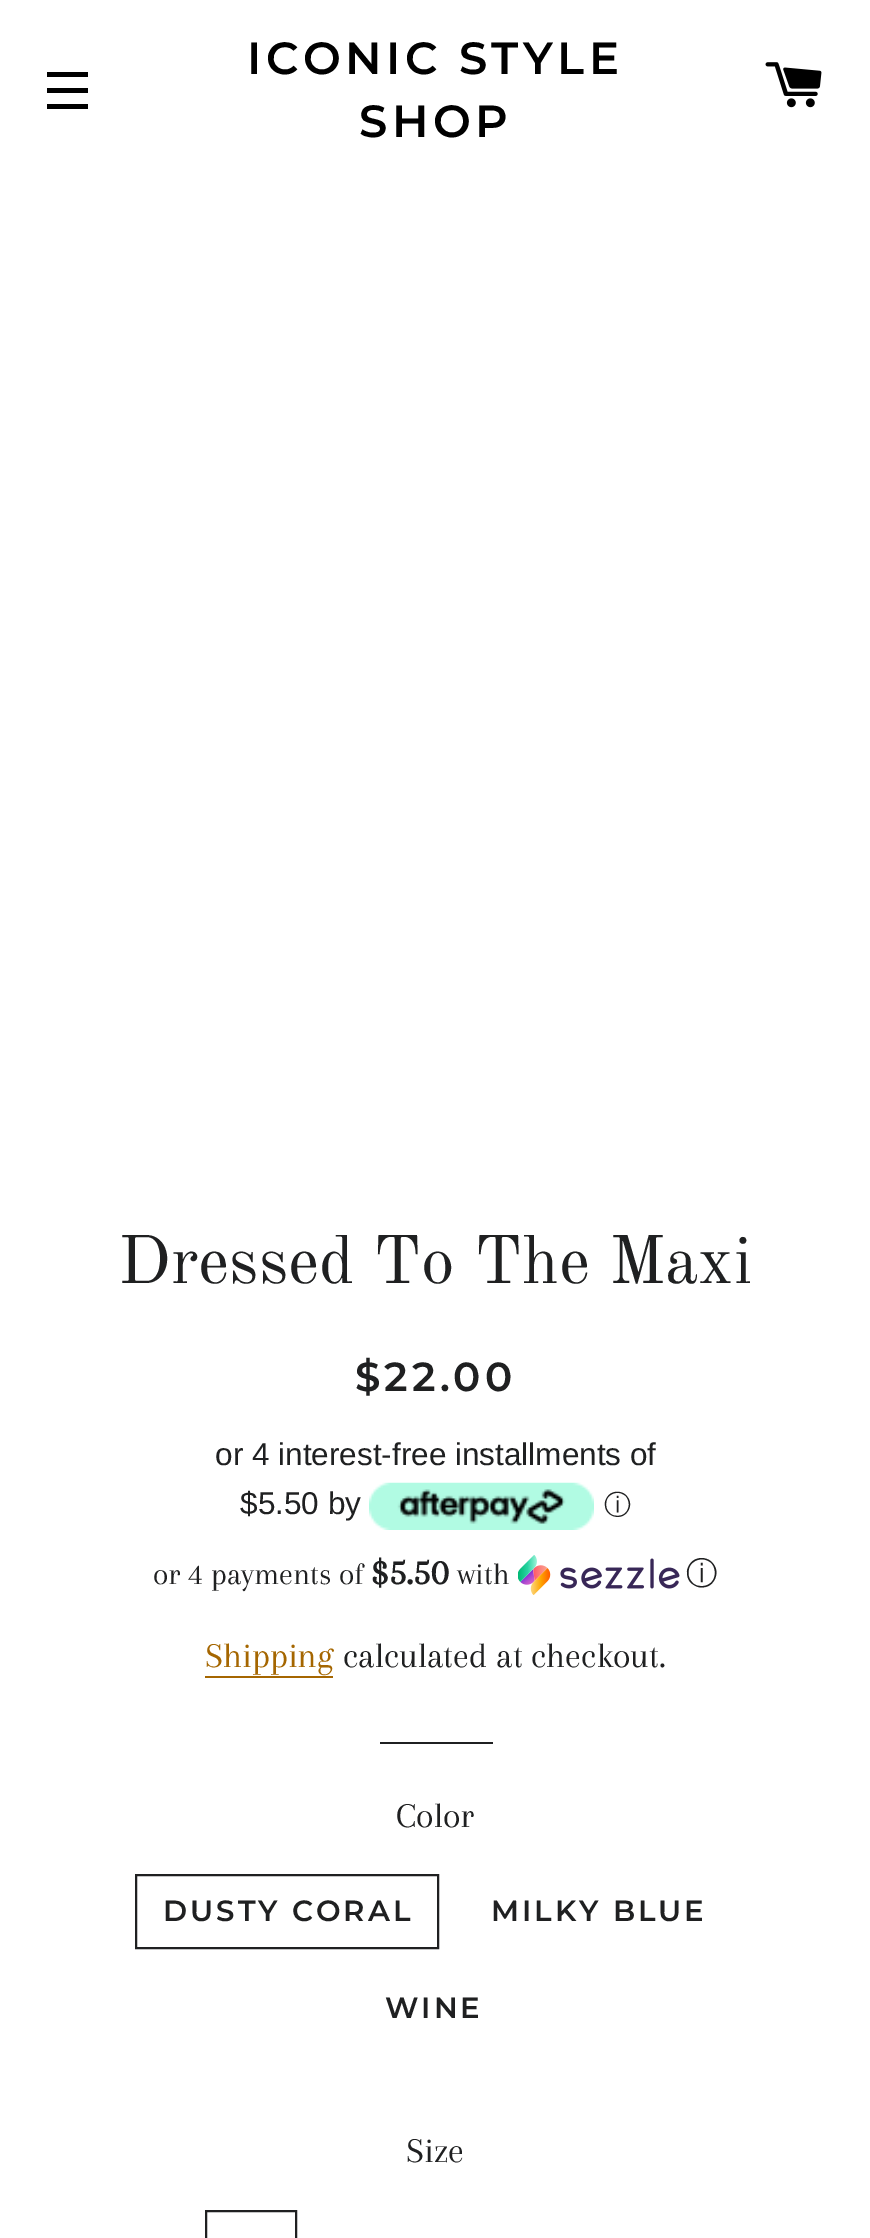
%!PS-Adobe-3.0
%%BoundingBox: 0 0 870 2238
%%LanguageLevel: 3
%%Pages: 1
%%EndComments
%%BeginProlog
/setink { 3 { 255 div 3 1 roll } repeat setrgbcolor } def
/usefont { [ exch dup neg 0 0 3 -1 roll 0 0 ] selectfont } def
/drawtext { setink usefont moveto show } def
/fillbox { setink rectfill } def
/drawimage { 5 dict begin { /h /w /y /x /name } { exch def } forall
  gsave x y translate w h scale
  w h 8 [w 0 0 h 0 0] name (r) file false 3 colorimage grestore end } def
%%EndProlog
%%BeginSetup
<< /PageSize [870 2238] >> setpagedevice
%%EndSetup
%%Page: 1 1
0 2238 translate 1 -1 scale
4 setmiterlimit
0 0 870 2238 255 255 255 fillbox
47 72 41 5 0 0 0 fillbox
47 88 41 5 0 0 0 fillbox
47 104 41 5 0 0 0 fillbox
/Montserrat-SemiBold 45 usefont
247 74 moveto 4.5 0 (ICONIC STYLE) ashow
359 137 moveto 4.5 0 (SHOP) ashow
(assets/img1.rgb) 765 62 57 46 drawimage
(Dressed To The Maxi) 118 1283 /OldStandardTT-Regular 67.5 31 32 33 drawtext
/Montserrat-SemiBold 40.5 usefont
355 1391 moveto 4 0 ($22.00) ashow
(or 4 interest-free installments of) 215 1465 /LiberationSans-Regular 31.5 31 32 33 drawtext
($5.50 by) 240 1514 /LiberationSans-Regular 31.5 31 32 33 drawtext
(assets/img2.rgb) 369 1482 225 48 drawimage
(ⓘ) 604 1514 /WenQuanYiZenHei-Medium 27 31 32 33 drawtext
(or 4 payments of) 153 1584 /Arapey-Regular 31.5 31 32 33 drawtext
($5.50) 371 1584 /Arapey-Bold 38 31 32 33 drawtext
(with) 457 1584 /Arapey-Regular 31.5 31 32 33 drawtext
(assets/img3.rgb) 518 1555 162 40 drawimage
(ⓘ) 686 1584 /WenQuanYiZenHei-Medium 31.5 31 32 33 drawtext
(Shipping) 205 1667 /Arapey-Regular 36 165 102 0 drawtext
205 1676 128 2 165 102 0 fillbox
(calculated at checkout.) 343 1667 /Arapey-Regular 36 31 32 33 drawtext
380 1742 113 2 31 32 33 fillbox
(Color) 396 1827 /Arapey-Regular 36 31 32 33 drawtext
2 setlinewidth
136 1875 302 73 rectstroke
/Montserrat-SemiBold 29.25 usefont
163 1921 moveto 3 0 (DUSTY CORAL) ashow
491 1921 moveto 3 0 (MILKY BLUE) ashow
385 2018 moveto 3 0 (WINE) ashow
(Size) 406 2162 /Arapey-Regular 36 31 32 33 drawtext
206 2211 90 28 rectstroke
showpage
%%EOF
